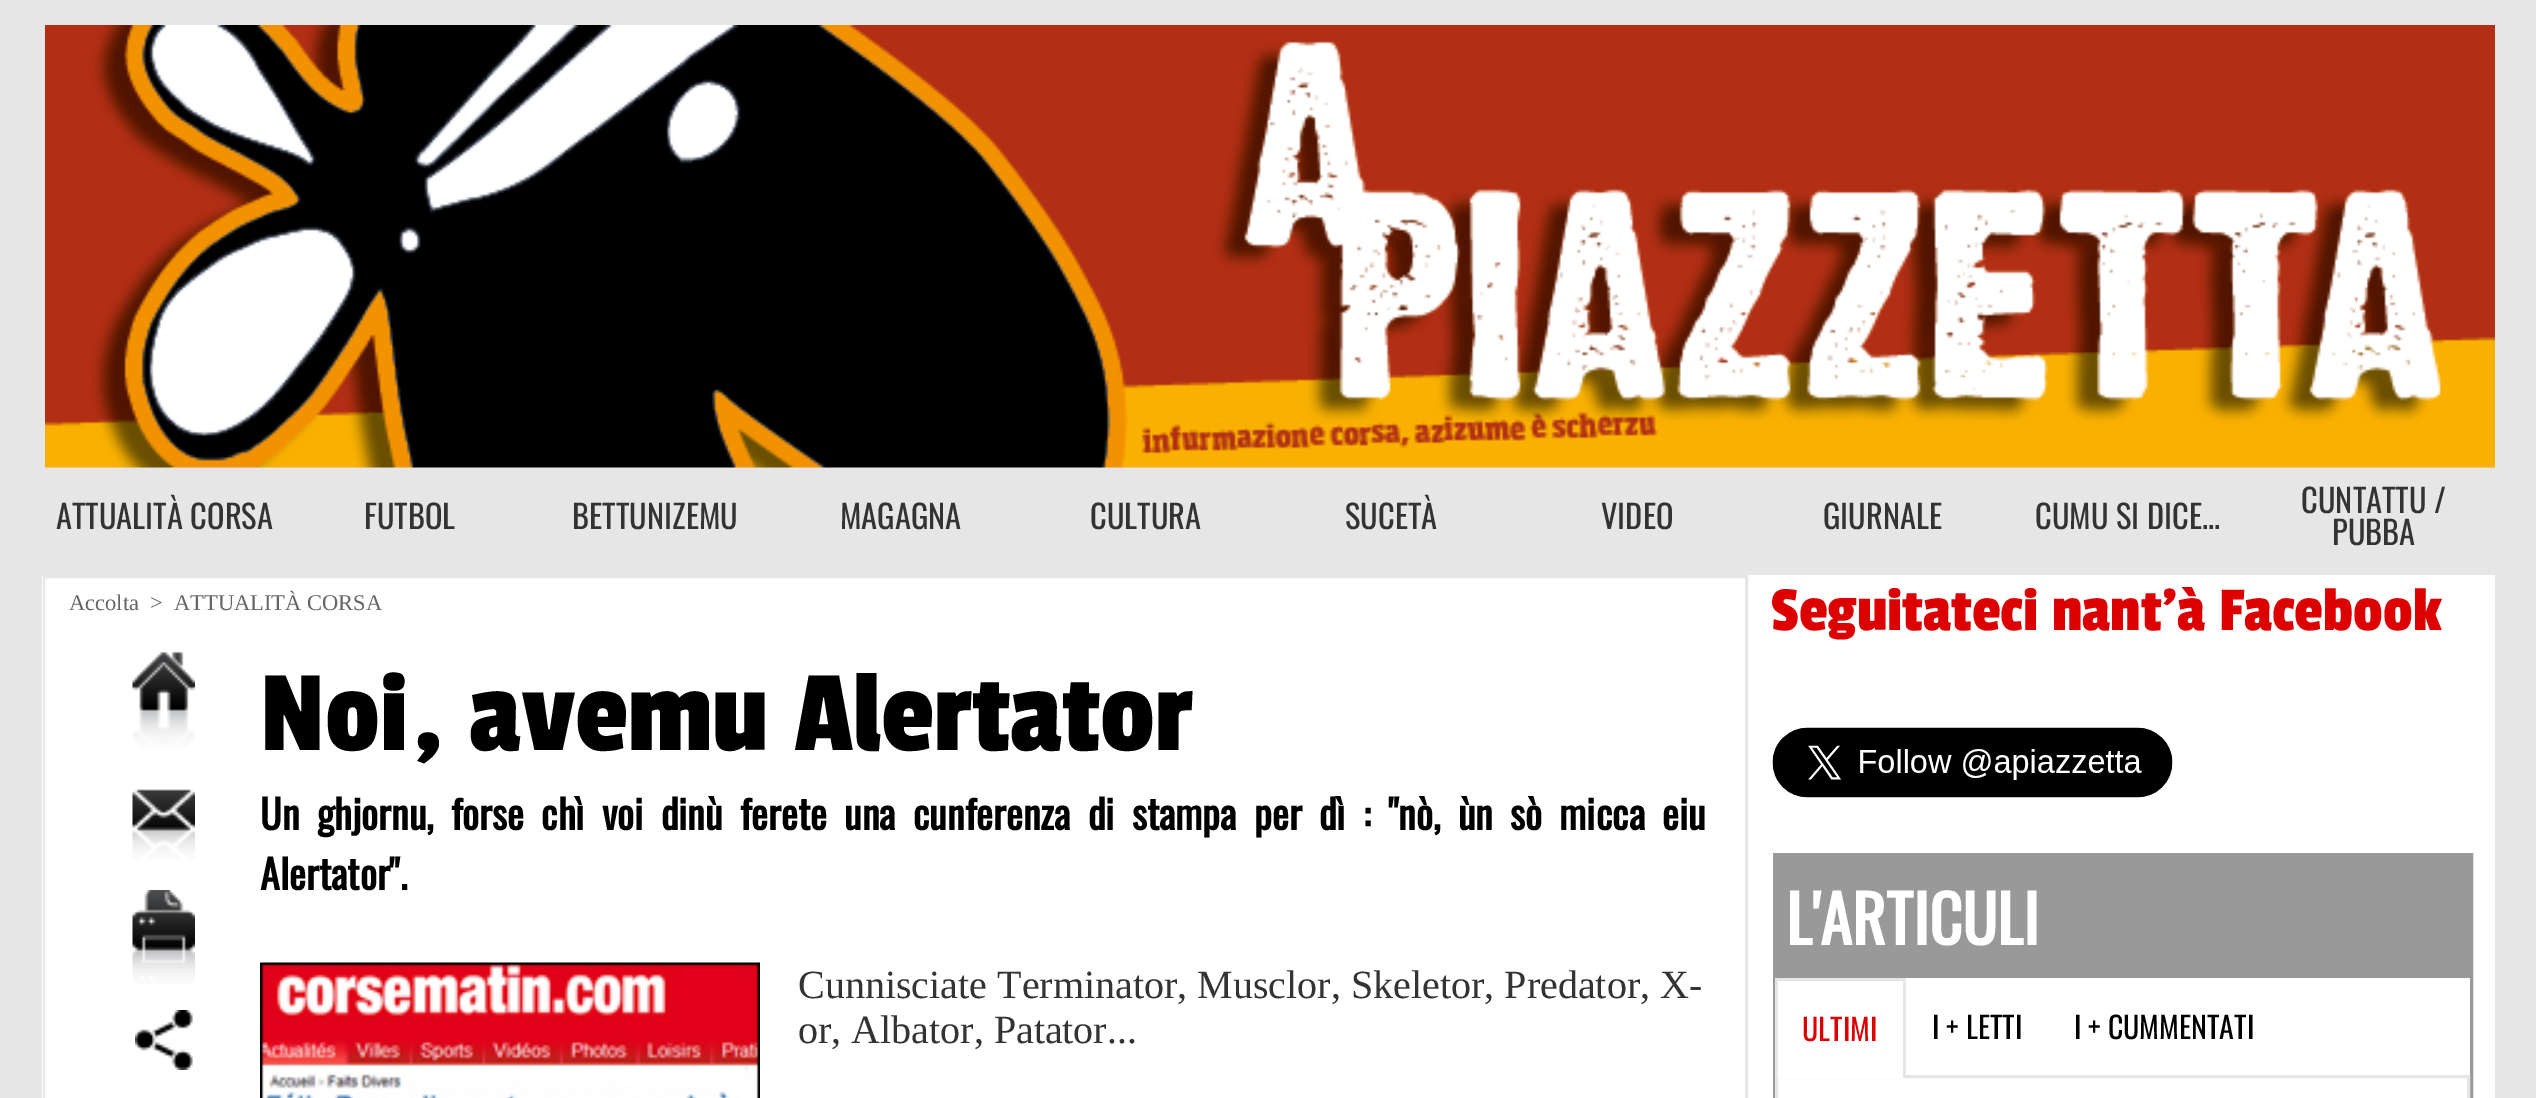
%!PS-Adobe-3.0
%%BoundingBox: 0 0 2536 1098
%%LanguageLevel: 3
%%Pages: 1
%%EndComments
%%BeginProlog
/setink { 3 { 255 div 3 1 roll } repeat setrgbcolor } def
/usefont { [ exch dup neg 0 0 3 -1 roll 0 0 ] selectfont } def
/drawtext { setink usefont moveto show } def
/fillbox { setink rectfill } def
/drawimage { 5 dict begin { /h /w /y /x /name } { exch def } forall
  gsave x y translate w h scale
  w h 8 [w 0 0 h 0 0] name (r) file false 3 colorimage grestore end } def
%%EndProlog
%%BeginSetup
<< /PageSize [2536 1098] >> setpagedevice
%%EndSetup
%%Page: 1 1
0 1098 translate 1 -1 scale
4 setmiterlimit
0 0 2536 1098 230 230 230 fillbox
(assets/img1.rgb) 45 25 2450 443 drawimage
(ATTUALITÀ CORSA) 56 529 /Oswald-Regular 32.5 51 51 51 drawtext
(FUTBOL) 364 529 /Oswald-Regular 32.5 51 51 51 drawtext
(BETTUNIZEMU) 572 529 /Oswald-Regular 32.5 51 51 51 drawtext
(MAGAGNA) 840 529 /Oswald-Regular 32.5 51 51 51 drawtext
(CULTURA) 1090 529 /Oswald-Regular 32.5 51 51 51 drawtext
(SUCETÀ) 1345 529 /Oswald-Regular 32.5 51 51 51 drawtext
(VIDEO) 1601 529 /Oswald-Regular 32.5 51 51 51 drawtext
(GIURNALE) 1823 529 /Oswald-Regular 32.5 51 51 51 drawtext
(CUMU SI DICE...) 2035 529 /Oswald-Regular 32.5 51 51 51 drawtext
(CUNTATTU /) 2301 513 /Oswald-Regular 32.5 51 51 51 drawtext
(PUBBA) 2332 545 /Oswald-Regular 32.5 51 51 51 drawtext
42 575 2453 523 255 255 255 fillbox
230 230 230 setink
3 setlinewidth
44.5 576.5 1702 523 rectstroke
45 578 1 520 255 255 255 fillbox
(Accolta) 69 610 /LiberationSerif-Regular 22.5 102 102 102 drawtext
(>) 150 610 /LiberationSerif-Regular 22.5 102 102 102 drawtext
(ATTUALITÀ CORSA) 174 610 /LiberationSerif-Regular 22.5 102 102 102 drawtext
(assets/img2.rgb) 132 651 63 98 drawimage
(assets/img3.rgb) 132 789 63 71 drawimage
(assets/img4.rgb) 132 890 63 95 drawimage
(assets/img5.rgb) 135 1010 58 60 drawimage
(Noi, avemu Alertator) 260 750 /PassionOne-Regular 120 0 0 0 drawtext
/Oswald-Bold 40 usefont
260 830 moveto 8.1 0 32 (Un ghjornu, forse chì voi dinù ferete una cunferenza di stampa per dì : "nò, ùn sò micca eiu) widthshow
(Alertator".) 260 890 /Oswald-Bold 40 0 0 0 drawtext
(assets/img6.rgb) 260 962 500 136 drawimage
/LiberationSerif-Regular 40 usefont
51 51 51 setink
798 998 moveto 0.25 0 32 (Cunnisciate Terminator, Musclor, Skeletor, Predator, X-) widthshow
(or, Albator, Patator...) 798 1043 /LiberationSerif-Regular 40 51 51 51 drawtext
(Seguitateci nant'à Facebook) 1771 630 /PassionOne-Regular 65 220 0 0 drawtext
(assets/img7.rgb) 1772 727 401 71 drawimage
153 153 153 setink
1774.5 854.5 697 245 rectstroke
1776 856 694 122 153 153 153 fillbox
(L'ARTICULI) 1786 945 /Oswald-Bold 65 255 255 255 drawtext
230 230 230 setink
1776.5 1076.5 692 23 rectstroke
1778 1075 125 3 255 255 255 fillbox
1775 978 130 3 230 230 230 fillbox
1903 978 3 100 230 230 230 fillbox
1775 978 3 100 230 230 230 fillbox
(ULTIMI) 1802 1041 /Oswald-Regular 30 220 0 0 drawtext
(I + LETTI) 1932 1039 /Oswald-Regular 30 0 0 0 drawtext
(I + CUMMENTATI) 2074 1039 /Oswald-Regular 30 0 0 0 drawtext
showpage
%%EOF
